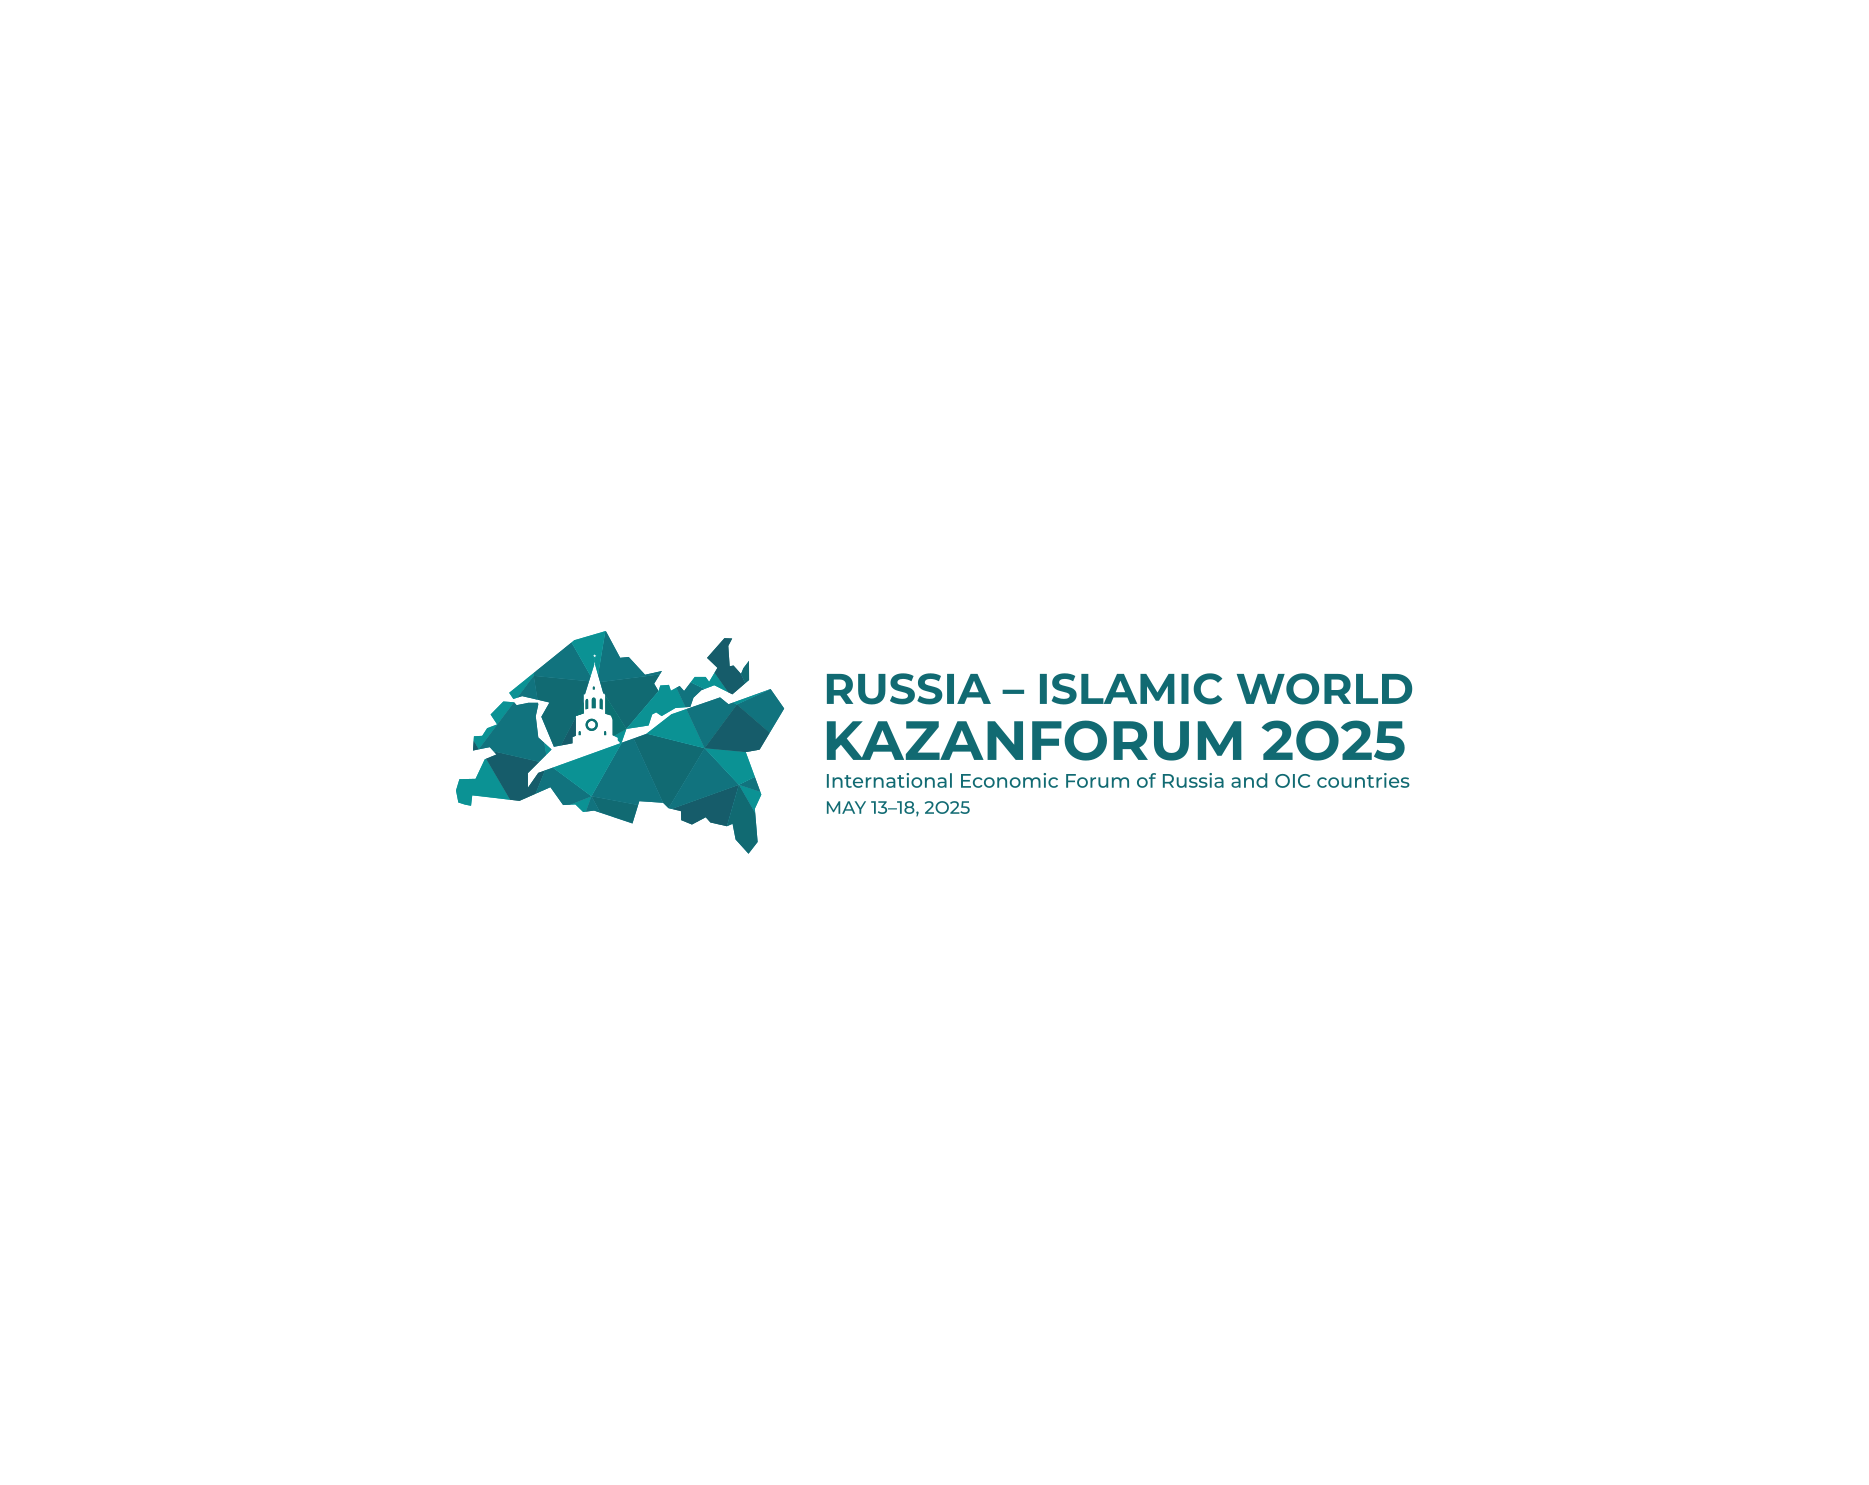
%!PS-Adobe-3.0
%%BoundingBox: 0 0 1869 1485
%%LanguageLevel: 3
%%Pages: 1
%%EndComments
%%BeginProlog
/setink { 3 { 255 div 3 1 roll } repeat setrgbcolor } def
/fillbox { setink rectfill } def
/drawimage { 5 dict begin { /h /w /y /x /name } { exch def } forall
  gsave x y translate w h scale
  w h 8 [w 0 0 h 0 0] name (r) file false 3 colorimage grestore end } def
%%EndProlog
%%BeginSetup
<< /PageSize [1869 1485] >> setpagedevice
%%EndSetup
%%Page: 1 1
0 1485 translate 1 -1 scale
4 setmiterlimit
0 0 1869 1485 255 255 255 fillbox
(assets/img1.rgb) 456 631 957 223 drawimage
showpage
%%EOF
